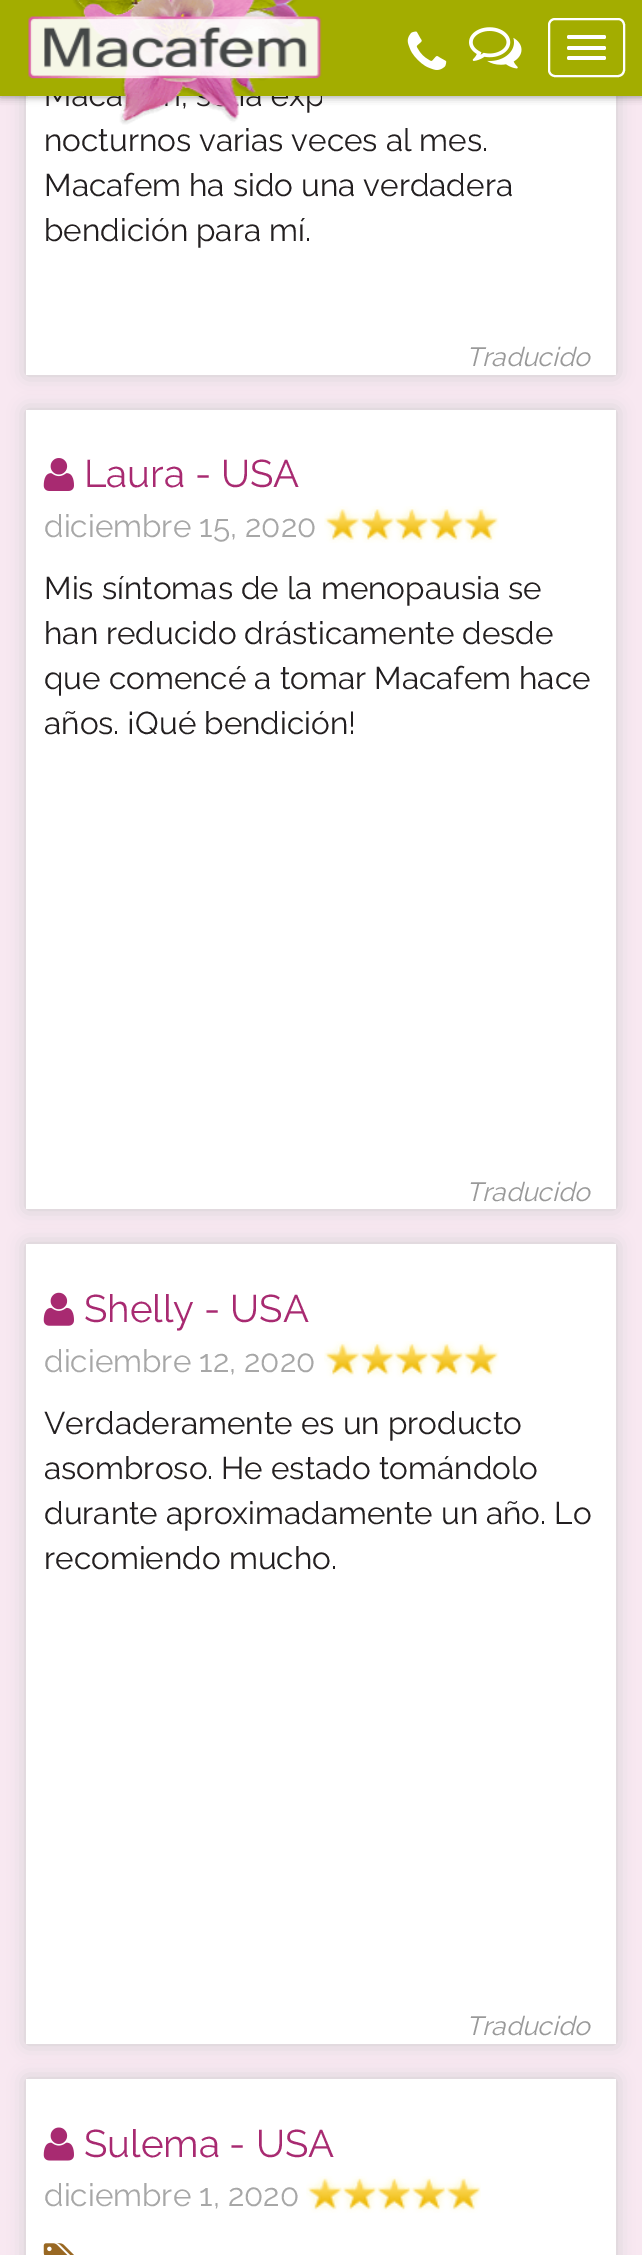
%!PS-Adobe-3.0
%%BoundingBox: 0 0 642 2255
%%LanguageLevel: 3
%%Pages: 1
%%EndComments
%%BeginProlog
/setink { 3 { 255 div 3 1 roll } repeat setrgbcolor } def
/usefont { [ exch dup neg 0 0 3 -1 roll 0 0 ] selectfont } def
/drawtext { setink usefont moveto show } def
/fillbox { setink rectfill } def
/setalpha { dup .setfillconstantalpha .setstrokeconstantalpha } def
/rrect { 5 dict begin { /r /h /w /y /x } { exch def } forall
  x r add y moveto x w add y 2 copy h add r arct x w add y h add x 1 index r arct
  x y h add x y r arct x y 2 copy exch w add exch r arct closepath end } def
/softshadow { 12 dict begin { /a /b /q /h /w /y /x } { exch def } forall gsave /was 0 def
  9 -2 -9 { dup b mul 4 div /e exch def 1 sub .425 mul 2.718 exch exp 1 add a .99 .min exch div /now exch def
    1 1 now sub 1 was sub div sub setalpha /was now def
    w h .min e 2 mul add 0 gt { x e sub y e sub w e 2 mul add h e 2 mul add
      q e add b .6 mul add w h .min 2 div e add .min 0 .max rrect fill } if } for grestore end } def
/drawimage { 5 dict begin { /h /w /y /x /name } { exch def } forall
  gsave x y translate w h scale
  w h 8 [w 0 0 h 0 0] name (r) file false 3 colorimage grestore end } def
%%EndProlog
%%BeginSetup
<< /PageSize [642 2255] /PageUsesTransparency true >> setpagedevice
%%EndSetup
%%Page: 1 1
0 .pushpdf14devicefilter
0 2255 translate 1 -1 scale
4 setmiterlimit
0 0 642 2255 248 232 241 fillbox
204 204 204 setink
26 -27 590 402 0 9 1 softshadow
26 96 590 279 255 255 255 fillbox
0 0 0 setink
0 -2 642 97 0 4.5 0.6 softshadow
0 0 642 96 163 173 0 fillbox
(,) 181 106 /Raleway-Regular 31.5 35 31 32 drawtext
(assets/img1.rgb) 28 0 294 125 drawimage
(assets/img2.rgb) 407 31 40 39 drawimage
(assets/img3.rgb) 469 27 53 42 drawimage
255 255 255 setink
2 setlinewidth
549 19 75 57 6 rrect stroke
567 35 39 4 2 rrect fill
567 46 39 4 2 rrect fill
567 56 39 4 2 rrect fill
(nocturnos varias veces al mes.) 44 151 /Raleway-Regular 31.5 35 31 32 drawtext
(Macafem ha sido una verdadera) 44 196 /Raleway-Regular 31.5 35 31 32 drawtext
(bendición para mí.) 44 241 /Raleway-Regular 31.5 35 31 32 drawtext
(Traducido) 466 366 /Raleway-Italic 26.25 153 153 153 drawtext
204 204 204 setink
26 410 590 799 0 9 1 softshadow
26 410 590 799 255 255 255 fillbox
(assets/img4.rgb) 43 458 31 33 drawimage
(Laura - USA) 84 487 /Raleway-Regular 38.5 168 42 113 drawtext
(diciembre 15, 2020) 44 537 /Raleway-Regular 31.5 167 167 167 drawtext
(assets/img5.rgb) 324 506 175 37 drawimage
(Mis síntomas de la menopausia se) 44 599 /Raleway-Regular 31.5 35 31 32 drawtext
(han reducido drásticamente desde) 44 644 /Raleway-Regular 31.5 35 31 32 drawtext
(que comencé a tomar Macafem hace) 44 689 /Raleway-Regular 31.5 35 31 32 drawtext
(años. ¡Qué bendición!) 44 734 /Raleway-Regular 31.5 35 31 32 drawtext
(Traducido) 466 1201 /Raleway-Italic 26.25 153 153 153 drawtext
204 204 204 setink
26 1244 590 800 0 9 1 softshadow
26 1244 590 800 255 255 255 fillbox
(assets/img6.rgb) 43 1292 31 34 drawimage
(Shelly - USA) 84 1322 /Raleway-Regular 38.5 168 42 113 drawtext
(diciembre 12, 2020) 44 1372 /Raleway-Regular 31.5 167 167 167 drawtext
(assets/img7.rgb) 324 1341 175 37 drawimage
(Verdaderamente es un producto) 44 1434 /Raleway-Regular 31.5 35 31 32 drawtext
(asombroso. He estado tomándolo) 44 1479 /Raleway-Regular 31.5 35 31 32 drawtext
(durante aproximadamente un año. Lo) 44 1524 /Raleway-Regular 31.5 35 31 32 drawtext
(recomiendo mucho.) 44 1569 /Raleway-Regular 31.5 35 31 32 drawtext
(Traducido) 466 2035 /Raleway-Italic 26.25 153 153 153 drawtext
204 204 204 setink
26 2079 590 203 0 9 1 softshadow
26 2079 590 176 255 255 255 fillbox
(assets/img8.rgb) 43 2127 31 34 drawimage
(Sulema - USA) 84 2157 /Raleway-Regular 38.5 168 42 113 drawtext
(diciembre 1, 2020) 44 2206 /Raleway-Regular 31.5 167 167 167 drawtext
(assets/img9.rgb) 306 2176 175 37 drawimage
(assets/img10.rgb) 43 2243 31 12 drawimage
.poppdf14devicefilter showpage
%%EOF
